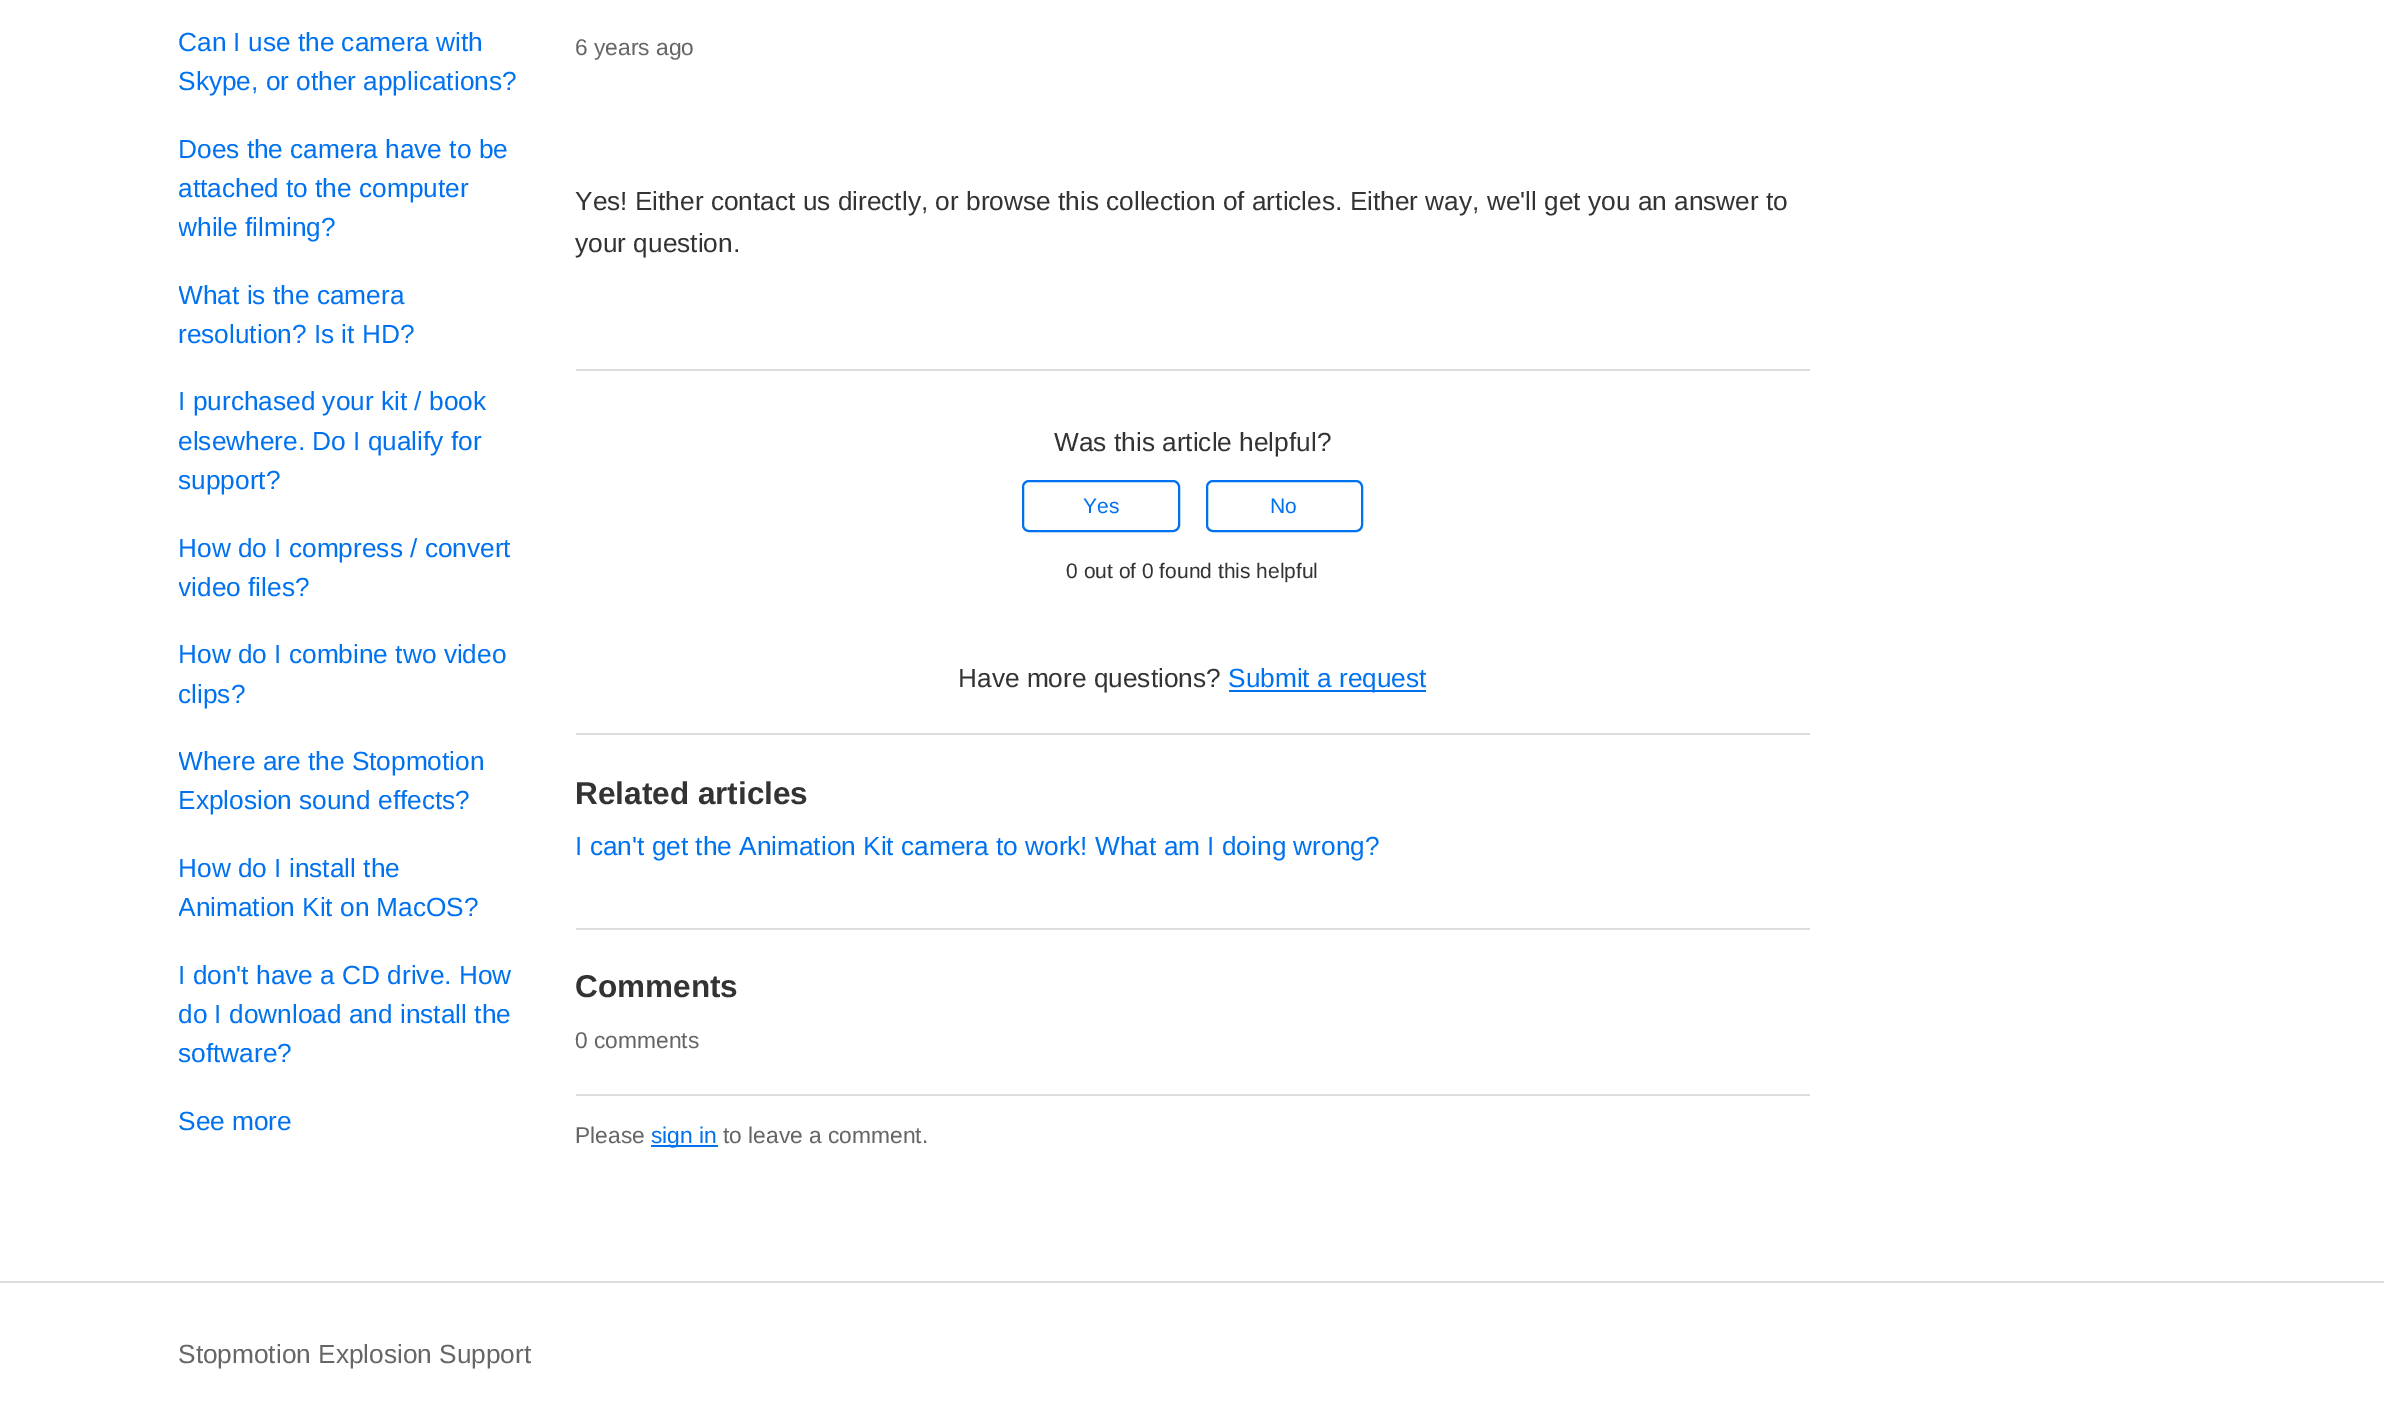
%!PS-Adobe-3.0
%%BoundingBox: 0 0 2384 1418
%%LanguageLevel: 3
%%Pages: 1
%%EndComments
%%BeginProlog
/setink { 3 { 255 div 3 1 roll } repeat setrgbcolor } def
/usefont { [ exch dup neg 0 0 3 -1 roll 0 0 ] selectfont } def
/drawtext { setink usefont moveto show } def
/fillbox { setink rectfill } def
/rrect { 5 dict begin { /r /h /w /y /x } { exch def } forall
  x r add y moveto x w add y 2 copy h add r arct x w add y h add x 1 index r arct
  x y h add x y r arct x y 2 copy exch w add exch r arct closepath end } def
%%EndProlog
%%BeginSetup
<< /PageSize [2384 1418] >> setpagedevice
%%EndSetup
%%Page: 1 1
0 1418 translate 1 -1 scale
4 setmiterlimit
0 0 2384 1418 255 255 255 fillbox
(Can I use the camera with) 178 51 /LiberationSans-Regular 26.25 0 114 239 drawtext
(Skype, or other applications?) 178 90 /LiberationSans-Regular 26.25 0 114 239 drawtext
(Does the camera have to be) 178 158 /LiberationSans-Regular 26.25 0 114 239 drawtext
(attached to the computer) 178 197 /LiberationSans-Regular 26.25 0 114 239 drawtext
gsave
179 130 344 119 rectclip
(while filming?) 178 236 /LiberationSans-Regular 26.25 0 114 239 drawtext
grestore
gsave
179 277 344 78 rectclip
(What is the camera) 178 304 /LiberationSans-Regular 26.25 0 114 239 drawtext
grestore
(resolution? Is it HD?) 178 343 /LiberationSans-Regular 26.25 0 114 239 drawtext
(I purchased your kit / book) 178 410 /LiberationSans-Regular 26.25 0 114 239 drawtext
gsave
179 383 344 118 rectclip
(elsewhere. Do I qualify for) 178 450 /LiberationSans-Regular 26.25 0 114 239 drawtext
(support?) 178 489 /LiberationSans-Regular 26.25 0 114 239 drawtext
grestore
(How do I compress / convert) 178 557 /LiberationSans-Regular 26.25 0 114 239 drawtext
gsave
179 529 344 78 rectclip
(video files?) 178 596 /LiberationSans-Regular 26.25 0 114 239 drawtext
grestore
(How do I combine two video) 178 663 /LiberationSans-Regular 26.25 0 114 239 drawtext
gsave
179 635 344 79 rectclip
(clips?) 178 703 /LiberationSans-Regular 26.25 0 114 239 drawtext
grestore
gsave
179 742 344 79 rectclip
(Where are the Stopmotion) 178 770 /LiberationSans-Regular 26.25 0 114 239 drawtext
grestore
(Explosion sound effects?) 178 809 /LiberationSans-Regular 26.25 0 114 239 drawtext
(How do I install the) 178 877 /LiberationSans-Regular 26.25 0 114 239 drawtext
gsave
179 849 344 79 rectclip
(Animation Kit on MacOS?) 178 916 /LiberationSans-Regular 26.25 0 114 239 drawtext
grestore
(I don't have a CD drive. How) 178 984 /LiberationSans-Regular 26.25 0 114 239 drawtext
gsave
179 956 344 119 rectclip
(do I download and install the) 178 1023 /LiberationSans-Regular 26.25 0 114 239 drawtext
(software?) 178 1062 /LiberationSans-Regular 26.25 0 114 239 drawtext
grestore
(See more) 178 1130 /LiberationSans-Regular 26.25 0 114 239 drawtext
(6 years ago) 575 55 /LiberationSans-Regular 22.75 102 102 102 drawtext
(Yes! Either contact us directly, or browse this collection of articles. Either way, we'll get you an answer to) 575 210 /LiberationSans-Regular 26.25 51 51 51 drawtext
(your question.) 575 252 /LiberationSans-Regular 26.25 51 51 51 drawtext
576 369 1234 2 221 221 221 fillbox
(Was this article helpful?) 1054 451 /LiberationSans-Regular 26.25 51 51 51 drawtext
0 114 239 setink
2 setlinewidth
1023 481 156 50 6 rrect stroke
(Yes) 1083 513 /LiberationSans-Regular 21 0 114 239 drawtext
1207 481 155 50 6 rrect stroke
(No) 1270 513 /LiberationSans-Regular 21 0 114 239 drawtext
(0 out of 0 found this helpful) 1066 578 /LiberationSans-Regular 21 51 51 51 drawtext
(Have more questions?) 958 687 /LiberationSans-Regular 26.25 51 51 51 drawtext
1229 690 197 2 0 114 239 fillbox
(Submit a request) 1228 687 /LiberationSans-Regular 26.25 0 114 239 drawtext
576 733 1234 2 221 221 221 fillbox
(Related articles) 575 804 /LiberationSans-Bold 31.5 51 51 51 drawtext
(I can't get the Animation Kit camera to work! What am I doing wrong?) 575 855 /LiberationSans-Regular 26.25 0 114 239 drawtext
576 928 1234 2 221 221 221 fillbox
576 1094 1234 2 221 221 221 fillbox
(Comments) 575 997 /LiberationSans-Bold 31.5 51 51 51 drawtext
(0 comments) 575 1048 /LiberationSans-Regular 22.75 102 102 102 drawtext
(Please) 575 1143 /LiberationSans-Regular 22.75 102 102 102 drawtext
651 1145 67 2 0 114 239 fillbox
(sign in) 651 1143 /LiberationSans-Regular 22.75 0 114 239 drawtext
(to leave a comment.) 723 1143 /LiberationSans-Regular 22.75 102 102 102 drawtext
0 1281 2384 2 221 221 221 fillbox
(Stopmotion Explosion Support) 178 1363 /LiberationSans-Regular 26.25 102 102 102 drawtext
showpage
%%EOF
